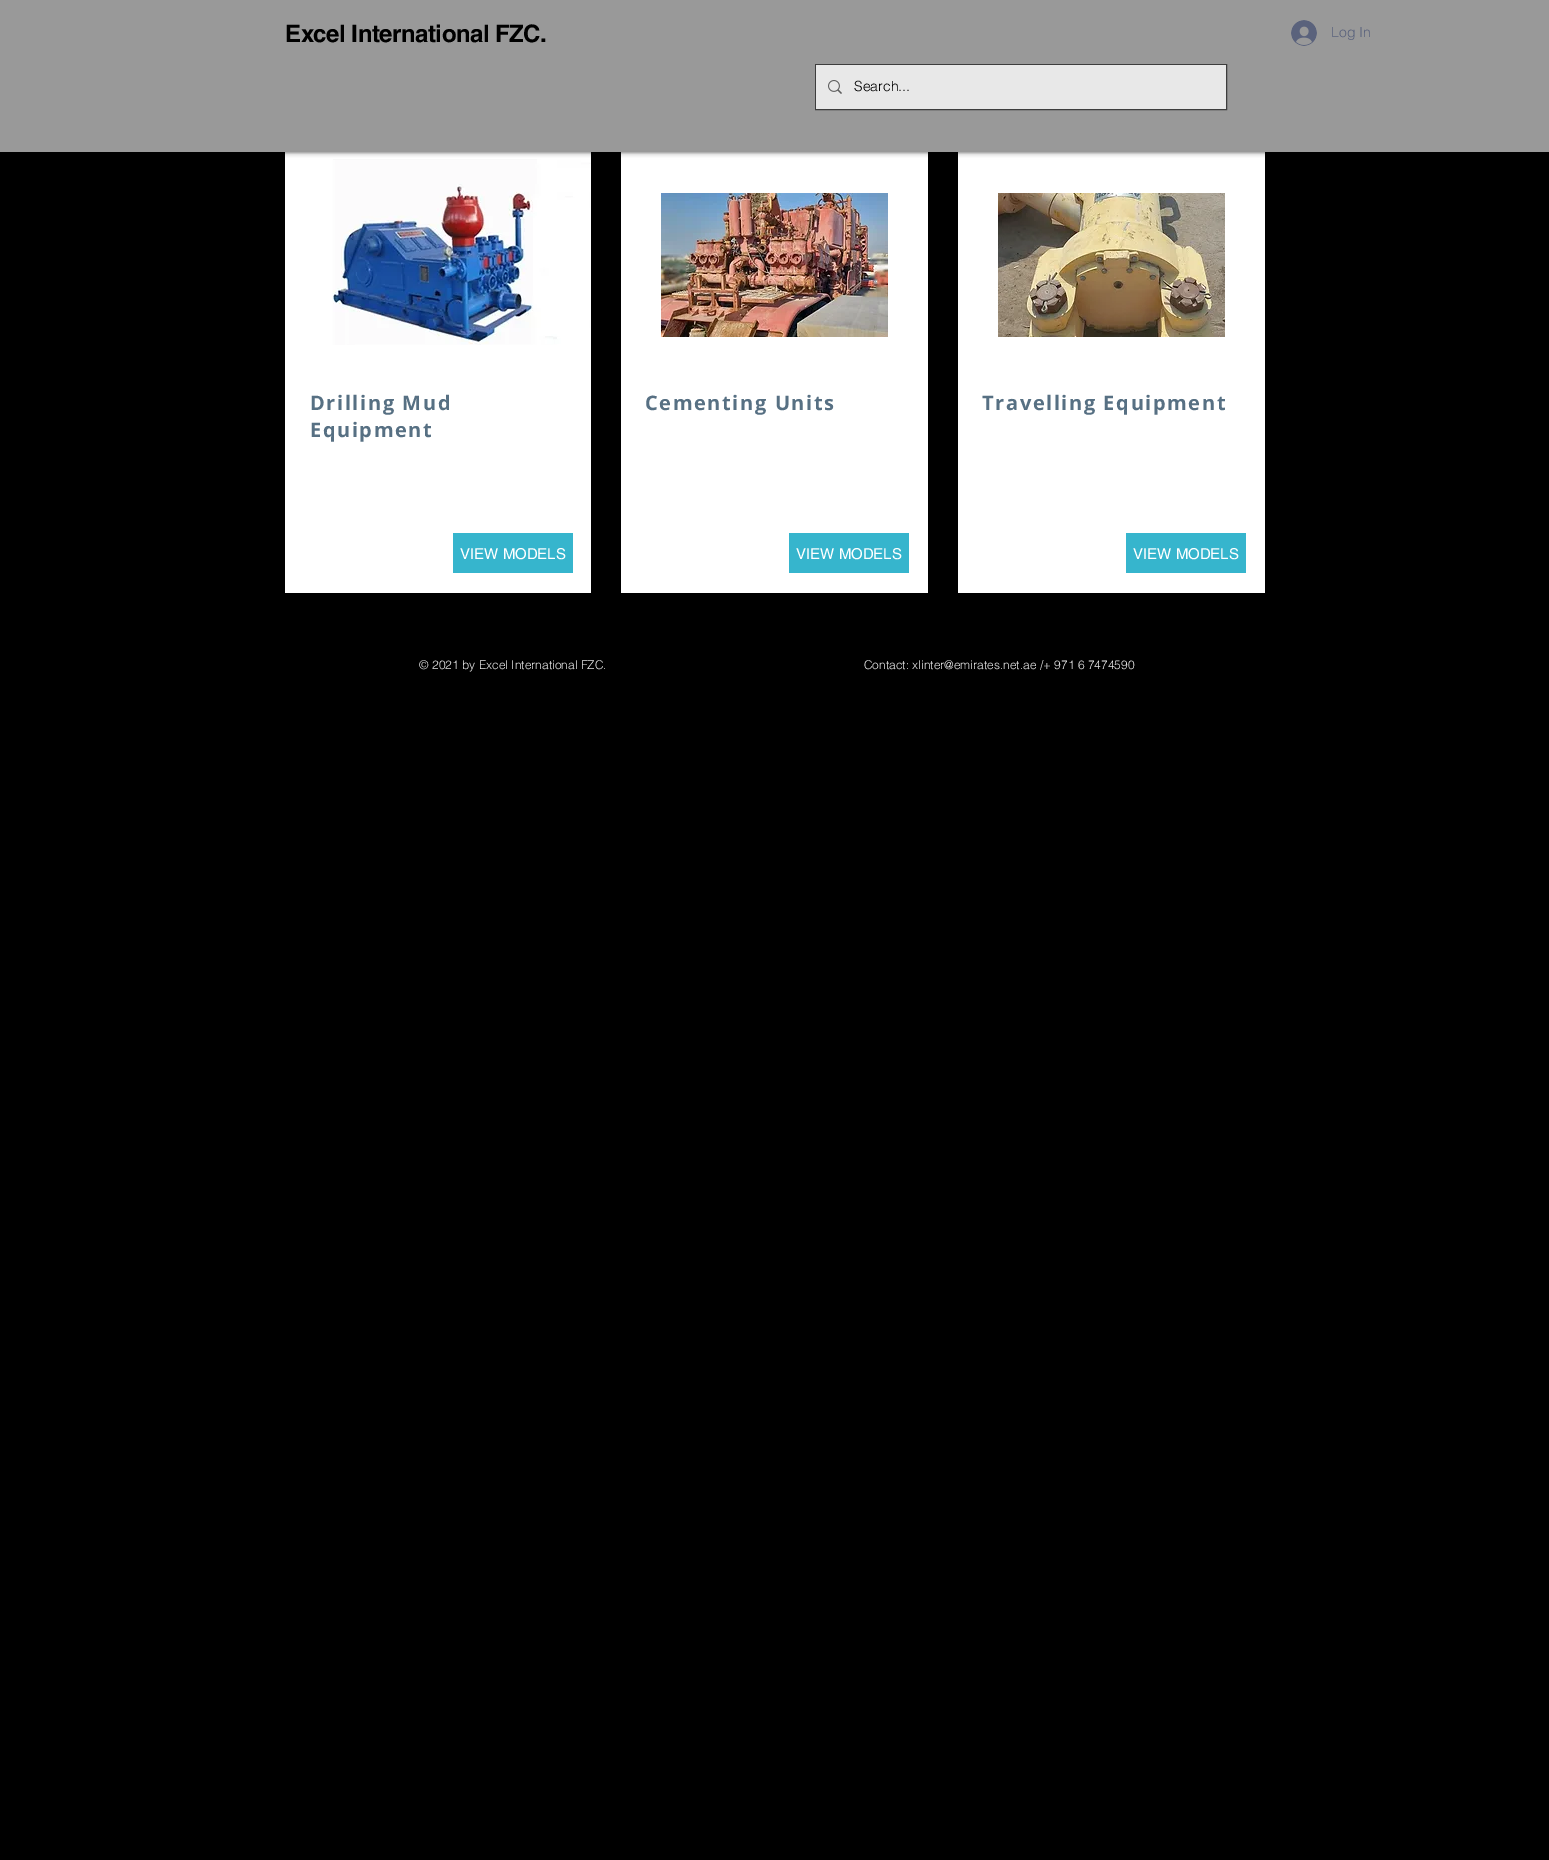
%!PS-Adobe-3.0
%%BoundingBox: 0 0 1549 1860
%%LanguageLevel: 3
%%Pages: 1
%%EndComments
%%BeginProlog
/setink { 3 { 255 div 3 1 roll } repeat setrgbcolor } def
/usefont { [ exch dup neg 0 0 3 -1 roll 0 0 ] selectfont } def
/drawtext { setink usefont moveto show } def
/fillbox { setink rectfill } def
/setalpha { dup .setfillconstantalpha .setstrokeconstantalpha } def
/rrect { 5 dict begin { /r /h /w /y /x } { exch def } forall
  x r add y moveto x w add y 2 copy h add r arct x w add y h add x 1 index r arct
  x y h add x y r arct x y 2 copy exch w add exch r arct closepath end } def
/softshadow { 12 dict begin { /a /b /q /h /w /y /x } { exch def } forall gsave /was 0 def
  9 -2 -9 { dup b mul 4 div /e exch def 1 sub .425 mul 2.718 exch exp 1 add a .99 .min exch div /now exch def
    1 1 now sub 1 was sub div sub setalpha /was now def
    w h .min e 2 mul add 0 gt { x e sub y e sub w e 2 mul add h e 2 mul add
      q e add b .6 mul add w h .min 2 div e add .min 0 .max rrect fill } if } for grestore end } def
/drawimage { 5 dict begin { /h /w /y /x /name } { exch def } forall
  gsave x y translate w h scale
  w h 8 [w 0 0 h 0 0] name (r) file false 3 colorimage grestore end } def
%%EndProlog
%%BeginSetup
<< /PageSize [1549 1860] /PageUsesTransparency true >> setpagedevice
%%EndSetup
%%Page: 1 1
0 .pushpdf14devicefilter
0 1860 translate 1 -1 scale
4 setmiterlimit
0 0 1549 1860 0 0 0 fillbox
285 152 306 441 255 255 255 fillbox
(assets/img3.rgb) 332 159 259 186 drawimage
621 152 307 441 255 255 255 fillbox
958 152 307 441 255 255 255 fillbox
0 0 0 setink
0 0 1549 152 0 2.5 0.7 softshadow
0 0 1549 152 153 153 153 fillbox
/helvetica-Bold 24 usefont
0 0 0 setink
285 42 moveto -0.5 0 (Excel International FZC.) ashow
(assets/img1.rgb) 1291 20 26 26 drawimage
(Log In) 1331 37 /helvetica-Light 14 90 98 124 drawtext
61 61 61 setink
815.5 64.5 411 45 rectstroke
816 65 410 44 232 232 232 fillbox
(assets/img2.rgb) 828 80 14 14 drawimage
(Search...) 854 91 /helvetica-Light 14 0 0 0 drawtext
/OpenSans-Bold 20 usefont
87 112 131 setink
310 410 moveto 1.6 0 (Drilling Mud) ashow
310 437 moveto 1.6 0 (Equipment) ashow
453 533 120 40 54 181 205 fillbox
(VIEW MODELS) 460 559 /helvetica-Regular 15 255 255 255 drawtext
(assets/img4.rgb) 661 193 227 144 drawimage
/OpenSans-Bold 20 usefont
87 112 131 setink
645 410 moveto 1.6 0 (Cementing Units) ashow
789 533 120 40 54 181 205 fillbox
(VIEW MODELS) 796 559 /helvetica-Regular 15 255 255 255 drawtext
(assets/img5.rgb) 998 193 227 144 drawimage
/OpenSans-Bold 20 usefont
87 112 131 setink
982 410 moveto 1.6 0 (Travelling Equipment) ashow
1126 533 120 40 54 181 205 fillbox
(VIEW MODELS) 1133 559 /helvetica-Regular 15 255 255 255 drawtext
(© 2021 by Excel International FZC.                                                                             Contact: xlinter@emirates.net.ae /+ 971 6 7474590) 419 669 /helvetica-Light 12 232 232 232 drawtext
.poppdf14devicefilter showpage
%%EOF
